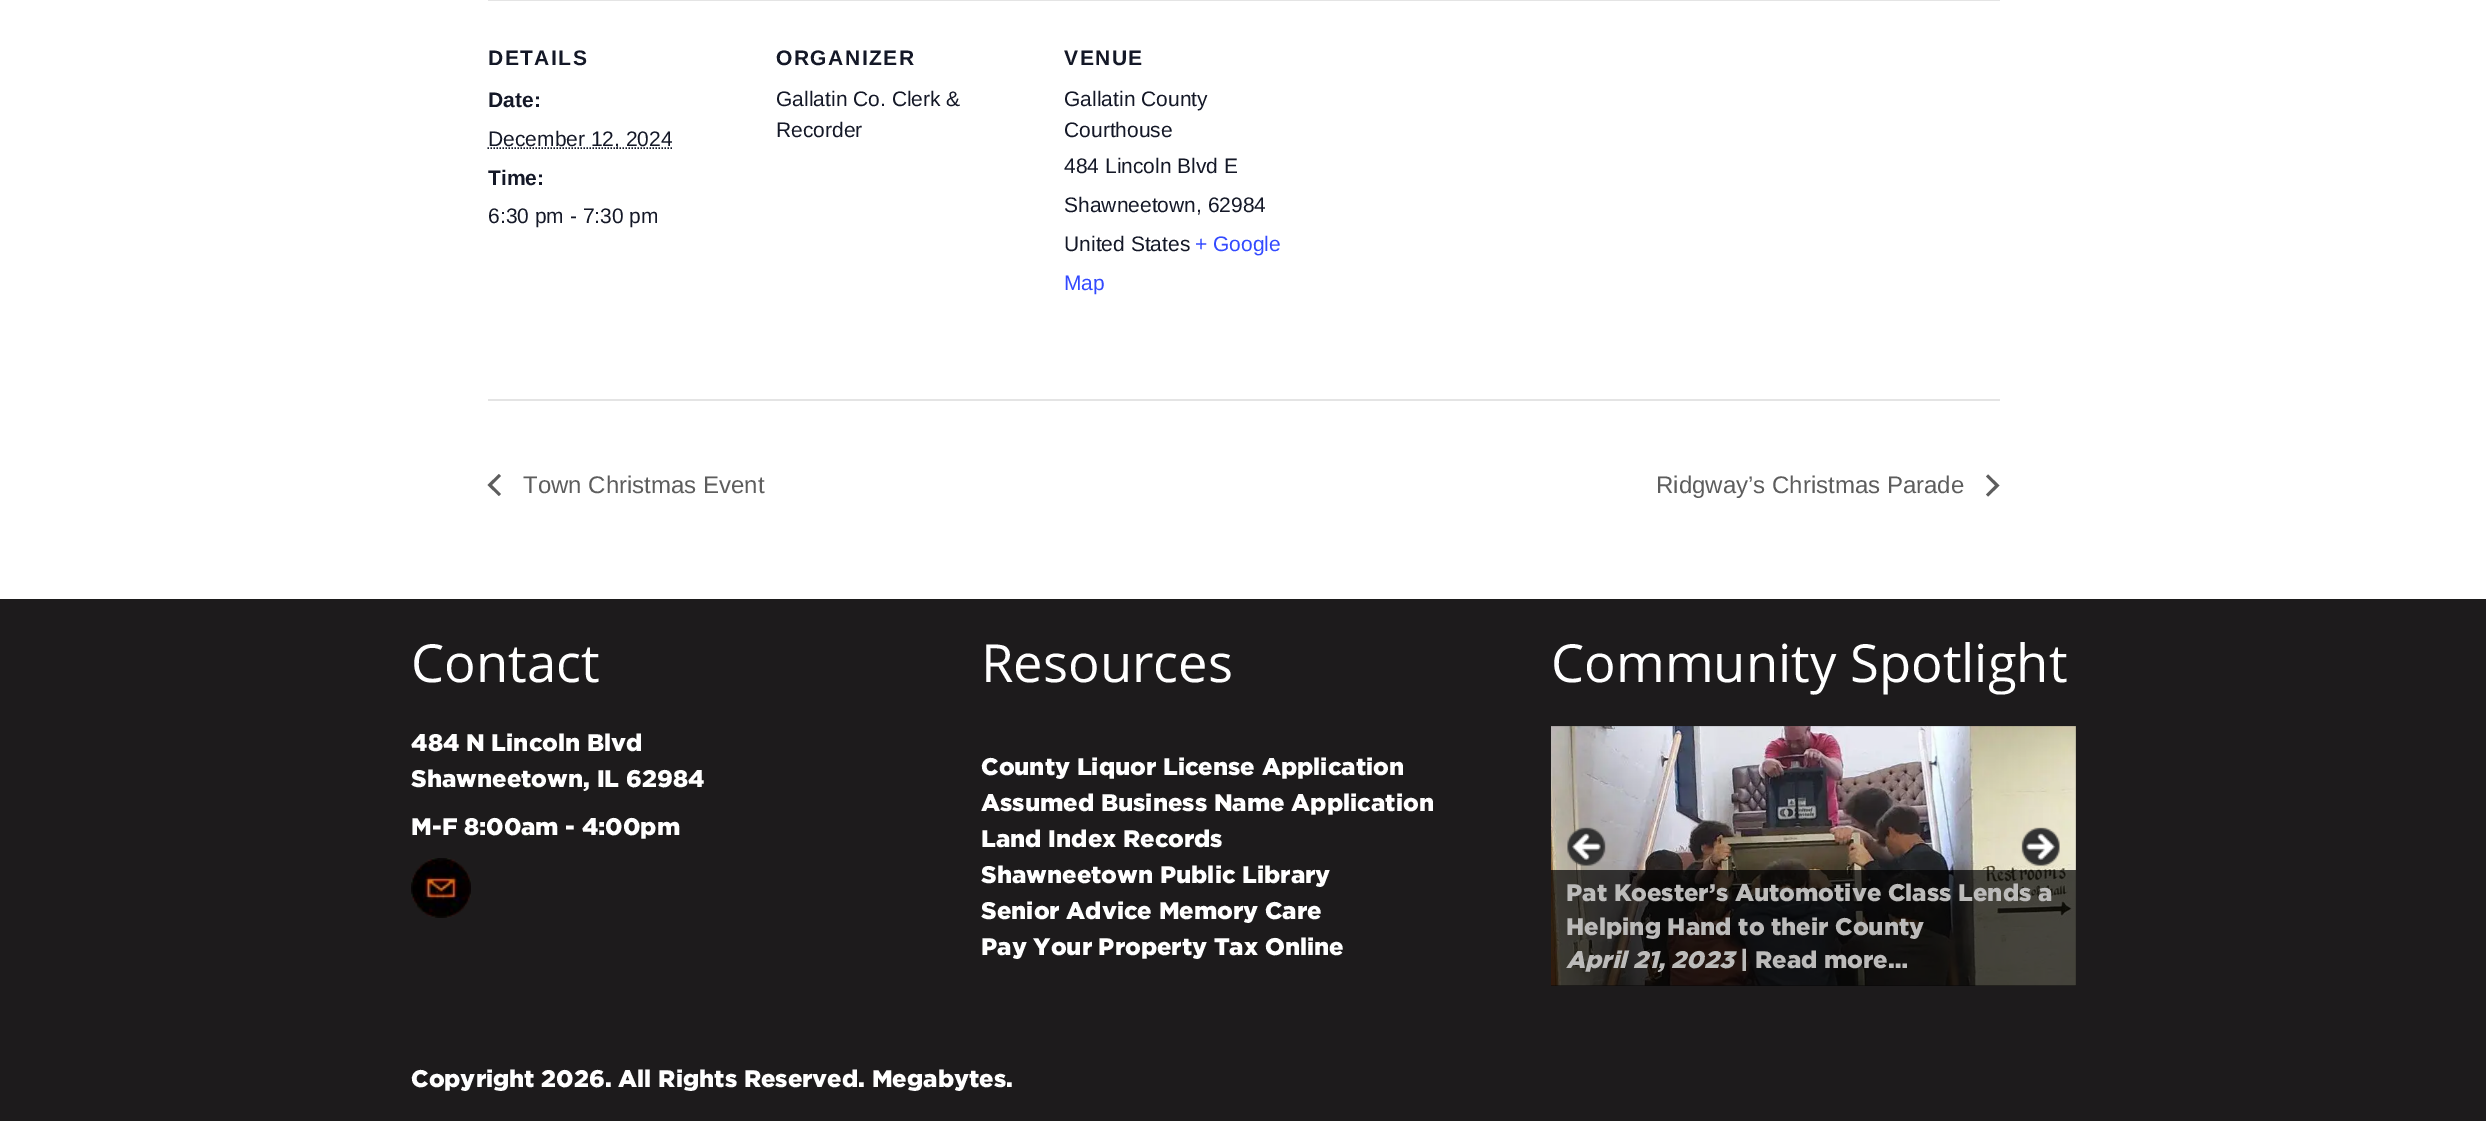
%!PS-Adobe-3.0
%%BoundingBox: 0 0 2486 1121
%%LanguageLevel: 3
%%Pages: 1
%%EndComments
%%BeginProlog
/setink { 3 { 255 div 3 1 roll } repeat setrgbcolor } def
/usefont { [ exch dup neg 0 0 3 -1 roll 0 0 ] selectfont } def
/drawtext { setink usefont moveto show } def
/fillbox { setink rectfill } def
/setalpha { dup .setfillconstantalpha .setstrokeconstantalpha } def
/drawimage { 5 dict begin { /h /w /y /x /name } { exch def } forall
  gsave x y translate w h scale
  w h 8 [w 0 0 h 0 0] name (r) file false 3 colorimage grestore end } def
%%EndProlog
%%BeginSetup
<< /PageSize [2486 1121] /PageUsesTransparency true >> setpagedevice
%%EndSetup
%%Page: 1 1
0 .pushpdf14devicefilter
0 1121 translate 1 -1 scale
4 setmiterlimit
0 0 2486 1121 255 255 255 fillbox
488 0 1512 1 228 228 228 fillbox
/LiberationSans-Bold 21 usefont
20 24 39 setink
488 65 moveto 1.5 0 (DETAILS) ashow
(Date:) 488 107 /LiberationSans-Bold 21 20 24 39 drawtext
1.5 setlinewidth
[1.5 1.5] 0 setdash
487.5 148 moveto 672 148 lineto stroke
(December 12, 2024) 488 146 /LiberationSans-Regular 21 20 24 39 drawtext
gsave
488 0 1512 399 rectclip
(Time:) 488 185 /LiberationSans-Bold 21 20 24 39 drawtext
grestore
(6:30 pm - 7:30 pm) 488 223 /LiberationSans-Regular 21 20 24 39 drawtext
/LiberationSans-Bold 21 usefont
776 65 moveto 1.5 0 (ORGANIZER) ashow
(Gallatin Co. Clerk &) 776 106 /LiberationSans-Regular 21 20 24 39 drawtext
(Recorder) 776 137 /LiberationSans-Regular 21 20 24 39 drawtext
/LiberationSans-Bold 21 usefont
1064 65 moveto 1.5 0 (VENUE) ashow
(Gallatin County) 1064 106 /LiberationSans-Regular 21 20 24 39 drawtext
(Courthouse) 1064 137 /LiberationSans-Regular 21 20 24 39 drawtext
(484 Lincoln Blvd E) 1064 173 /LiberationSans-Regular 21 20 24 39 drawtext
(Shawneetown, 62984) 1064 212 /LiberationSans-Regular 21 20 24 39 drawtext
(United States) 1064 251 /LiberationSans-Regular 21 20 24 39 drawtext
(+ Google) 1195 251 /LiberationSans-Regular 21 51 74 255 drawtext
(Map) 1064 290 /LiberationSans-Regular 21 51 74 255 drawtext
488 399 1512 2 228 228 228 fillbox
93 93 93 setink
501 494 moveto 499 496 lineto 487.5 485 lineto 499 474 lineto 501 476 lineto 492 485 lineto closepath fill
(Town Christmas Event) 523 493 /LiberationSans-Regular 24 93 93 93 drawtext
(Ridgway’s Christmas Parade) 1656 493 /LiberationSans-Regular 24 93 93 93 drawtext
1986 476.5 moveto 1988 474.5 lineto 1999.5 485.5 lineto 1988 496.5 lineto 1986 494.5 lineto 1995 485.5 lineto closepath fill
0 599 2486 522 29 27 28 fillbox
(Contact) 411 682 /OpenSans-Regular 52.5 255 255 255 drawtext
(484 N Lincoln Blvd) 411 751 /Gotham-Black 24 255 255 255 drawtext
(Shawneetown, IL 62984) 411 787 /Gotham-Black 24 255 255 255 drawtext
(M-F 8:00am - 4:00pm) 411 835 /Gotham-Black 24 255 255 255 drawtext
(assets/img1.rgb) 411 858 60 60 drawimage
(Resources) 981 682 /OpenSans-Regular 52.5 255 255 255 drawtext
(County Liquor License Application) 981 775 /Gotham-Black 24 255 255 255 drawtext
(Assumed Business Name Application) 981 811 /Gotham-Black 24 255 255 255 drawtext
(Land Index Records) 981 847 /Gotham-Black 24 255 255 255 drawtext
(Shawneetown Public Library) 981 883 /Gotham-Black 24 255 255 255 drawtext
(Senior Advice Memory Care) 981 919 /Gotham-Black 24 255 255 255 drawtext
(Pay Your Property Tax Online) 981 955 /Gotham-Black 24 255 255 255 drawtext
(Community Spotlight) 1551 682 /OpenSans-Regular 52.5 255 255 255 drawtext
(assets/img4.rgb) 1551 726 525 260 drawimage
(assets/img2.rgb) 1567 827 39 39 drawimage
(assets/img3.rgb) 2021 827 39 39 drawimage
0.7 setalpha
1551 870 525 116 0 0 0 fillbox
1 setalpha
(Pat Koester’s Automotive Class Lends a) 1566 901 /Gotham-Black 24 188 187 186 drawtext
(Helping Hand to their County) 1566 935 /Gotham-Black 24 188 187 186 drawtext
(April 21, 2023) 1566 968 /Gotham-BlackItalic 24 188 187 186 drawtext
(|) 1740 968 /Gotham-Black 24 188 187 186 drawtext
(Read more…) 1755 968 /Gotham-Black 24 188 187 186 drawtext
(Copyright 2026. All Rights Reserved. Megabytes.) 411 1087 /Gotham-Black 24 255 255 255 drawtext
.poppdf14devicefilter showpage
%%EOF
